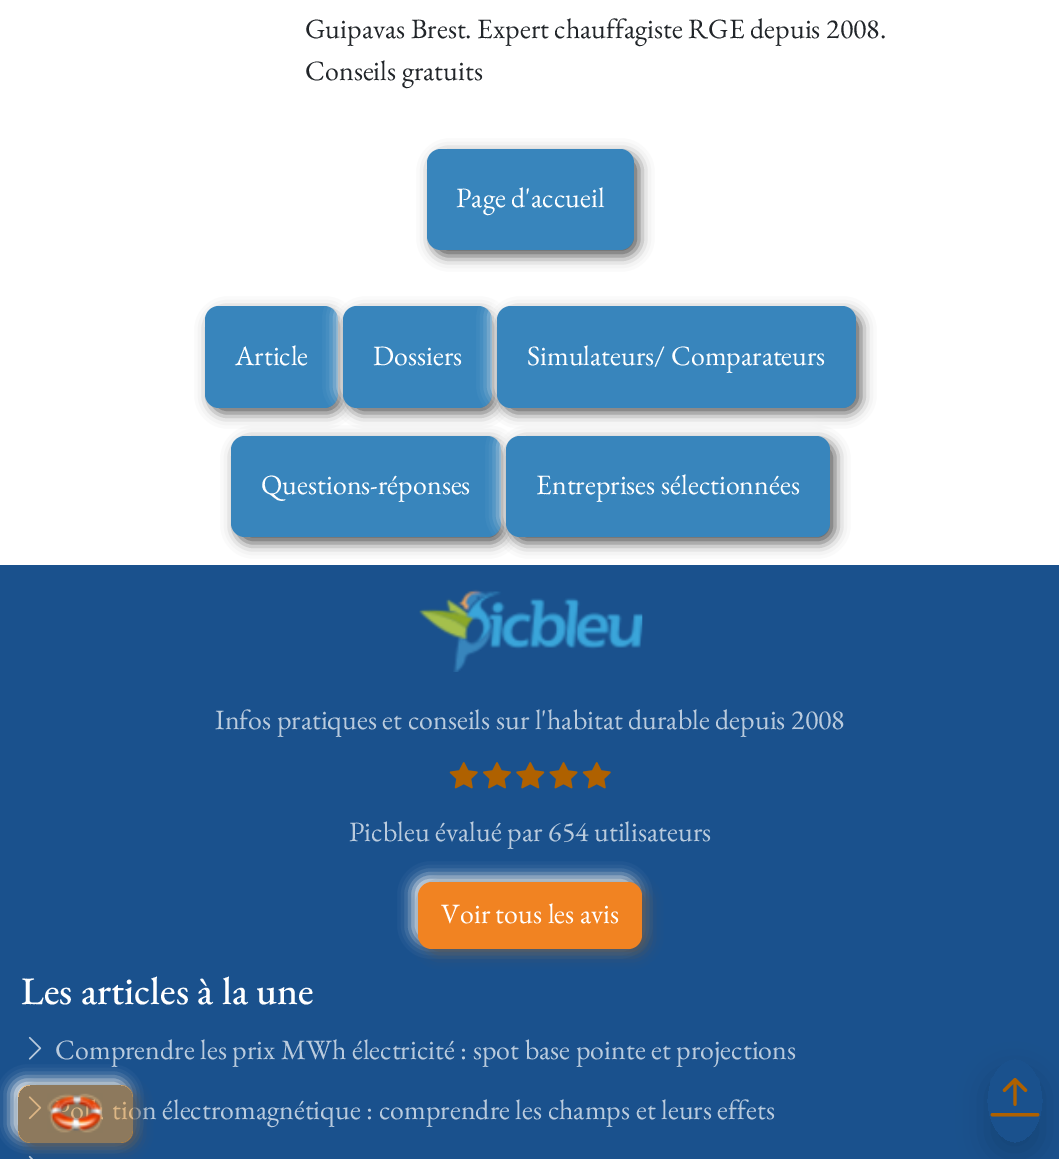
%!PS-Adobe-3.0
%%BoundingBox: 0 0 1059 1159
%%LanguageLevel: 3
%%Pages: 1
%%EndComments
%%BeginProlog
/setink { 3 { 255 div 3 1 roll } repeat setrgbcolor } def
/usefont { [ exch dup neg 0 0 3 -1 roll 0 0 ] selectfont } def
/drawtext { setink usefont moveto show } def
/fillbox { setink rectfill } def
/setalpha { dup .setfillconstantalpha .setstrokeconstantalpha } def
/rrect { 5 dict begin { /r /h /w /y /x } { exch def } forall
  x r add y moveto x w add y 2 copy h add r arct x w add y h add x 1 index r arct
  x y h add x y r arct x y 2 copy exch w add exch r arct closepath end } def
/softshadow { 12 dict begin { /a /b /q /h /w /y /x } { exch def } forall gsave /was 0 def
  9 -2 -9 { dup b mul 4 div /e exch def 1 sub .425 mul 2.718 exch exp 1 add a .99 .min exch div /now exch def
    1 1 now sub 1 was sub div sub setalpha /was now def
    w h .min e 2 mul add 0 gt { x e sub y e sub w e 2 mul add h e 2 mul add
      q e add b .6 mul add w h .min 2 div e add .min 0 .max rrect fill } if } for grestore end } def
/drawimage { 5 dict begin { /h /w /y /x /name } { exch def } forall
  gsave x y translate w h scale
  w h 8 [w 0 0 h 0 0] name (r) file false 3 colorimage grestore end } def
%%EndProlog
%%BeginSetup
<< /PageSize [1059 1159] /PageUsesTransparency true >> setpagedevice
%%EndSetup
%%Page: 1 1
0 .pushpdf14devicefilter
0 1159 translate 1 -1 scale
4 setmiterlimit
0 0 1059 1159 255 255 255 fillbox
(Guipavas Brest. Expert chauffagiste RGE depuis 2008.) 305 38 /EBGaramond-Regular 28 33 37 41 drawtext
(Conseils gratuits) 305 80 /EBGaramond-Regular 28 33 37 41 drawtext
85 85 85 setink
432 154 207 102 14 7 1 softshadow
56 133 188 setink
427 149 207 101 14 rrect fill
(Page d'accueil) 456 207 /EBGaramond-Regular 28 255 255 255 drawtext
85 85 85 setink
210 312 133 101 14 7 1 softshadow
56 133 188 setink
205 306 133 102 14 rrect fill
(Article) 235 365 /EBGaramond-Regular 28 255 255 255 drawtext
338 301 149 102 14 7 1 softshadow
85 85 85 setink
348 312 149 101 14 7 1 softshadow
56 133 188 setink
343 306 149 102 14 rrect fill
(Dossiers) 373 365 /EBGaramond-Regular 28 255 255 255 drawtext
492 301 359 102 14 7 1 softshadow
85 85 85 setink
502 312 359 101 14 7 1 softshadow
56 133 188 setink
497 306 359 102 14 rrect fill
(Simulateurs/ Comparateurs) 527 365 /EBGaramond-Regular 28 255 255 255 drawtext
85 85 85 setink
236 441 270 102 14 7 1 softshadow
56 133 188 setink
231 436 270 101 14 rrect fill
(Questions-réponses) 261 494 /EBGaramond-Regular 28 255 255 255 drawtext
501 431 323 101 14 7 1 softshadow
85 85 85 setink
511 441 324 102 14 7 1 softshadow
56 133 188 setink
506 436 324 101 14 rrect fill
(Entreprises sélectionnées) 536 494 /EBGaramond-Regular 28 255 255 255 drawtext
0 565 1059 594 26 81 141 fillbox
(assets/img1.rgb) 419 589 224 83 drawimage
(Infos pratiques et conseils sur l'habitat durable depuis 2008) 215 729 /EBGaramond-Regular 28 186 203 221 drawtext
(assets/img2.rgb) 449 762 29 27 drawimage
(assets/img3.rgb) 483 762 28 27 drawimage
(assets/img4.rgb) 516 762 29 27 drawimage
(assets/img5.rgb) 549 762 29 27 drawimage
(assets/img2.rgb) 582 762 29 27 drawimage
(Picbleu évalué par 654 utilisateurs) 349 841 /EBGaramond-Regular 28 186 203 221 drawtext
255 255 255 setink
413 877 224 66 14 7 1 softshadow
85 85 85 setink
424 887 224 67 14 7 1 softshadow
241 131 34 setink
418 882 224 67 14 rrect fill
(Voir tous les avis) 441 923 /EBGaramond-Regular 28 255 255 255 drawtext
(Les articles à la une) 21 1004 /EBGaramond-Medium 39 255 255 255 drawtext
(assets/img6.rgb) 28 1036 14 24 drawimage
(Comprendre les prix MWh électricité : spot base pointe et projections) 55 1059 /EBGaramond-Regular 28 186 203 221 drawtext
(assets/img7.rgb) 28 1096 14 24 drawimage
(tion électromagnétique : comprendre les champs et leurs effets) 112 1119 /EBGaramond-Regular 28 186 203 221 drawtext
(assets/img8.rgb) 28 1155 5 4 drawimage
gsave
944 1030 moveto 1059 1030 lineto 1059 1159 lineto 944 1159 lineto closepath 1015 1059 moveto 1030.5 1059 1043 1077.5 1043 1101 curveto 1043 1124 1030.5 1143 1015 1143 curveto 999.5 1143 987 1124 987 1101 curveto 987 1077.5 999.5 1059 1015 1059 curveto closepath eoclip newpath
0 0 0 setink
987 1073 56 84 28 14 0.15 softshadow
grestore
(assets/img9.rgb) 990 1078 50 39 drawimage
gsave
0 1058 moveto 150 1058 lineto 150 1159 lineto 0 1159 lineto closepath 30 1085 moveto 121 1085 lineto 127.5 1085 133 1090.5 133 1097 curveto 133 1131 lineto 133 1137.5 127.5 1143 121 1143 curveto 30 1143 lineto 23.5 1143 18 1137.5 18 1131 curveto 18 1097 lineto 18 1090.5 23.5 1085 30 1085 curveto closepath eoclip newpath
255 255 255 setink
12 1080 116 58 12 7 1 softshadow
grestore
gsave
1 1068 moveto 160 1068 lineto 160 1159 lineto 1 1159 lineto closepath 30 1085 moveto 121 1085 lineto 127.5 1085 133 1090.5 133 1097 curveto 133 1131 lineto 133 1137.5 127.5 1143 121 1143 curveto 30 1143 lineto 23.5 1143 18 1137.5 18 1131 curveto 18 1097 lineto 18 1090.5 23.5 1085 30 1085 curveto closepath eoclip newpath
85 85 85 setink
23 1090 115 58 12 7 1 softshadow
grestore
0.5 setalpha
255 161 45 setink
18 1085 115 58 12 rrect fill
1 setalpha
(assets/img10.rgb) 47 1093 56 40 drawimage
.poppdf14devicefilter showpage
%%EOF
